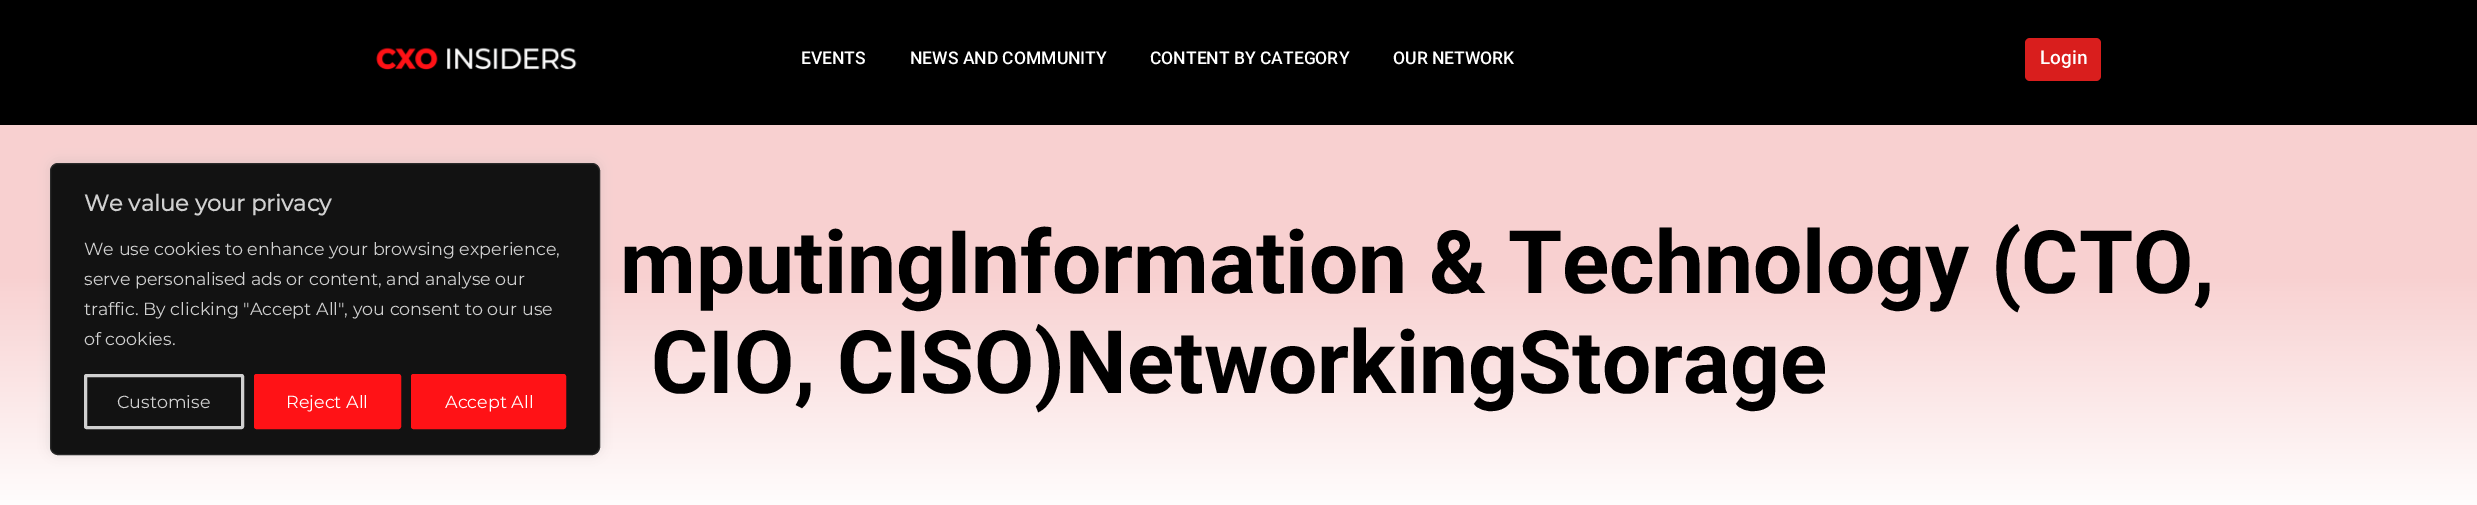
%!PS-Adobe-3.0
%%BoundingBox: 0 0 2477 505
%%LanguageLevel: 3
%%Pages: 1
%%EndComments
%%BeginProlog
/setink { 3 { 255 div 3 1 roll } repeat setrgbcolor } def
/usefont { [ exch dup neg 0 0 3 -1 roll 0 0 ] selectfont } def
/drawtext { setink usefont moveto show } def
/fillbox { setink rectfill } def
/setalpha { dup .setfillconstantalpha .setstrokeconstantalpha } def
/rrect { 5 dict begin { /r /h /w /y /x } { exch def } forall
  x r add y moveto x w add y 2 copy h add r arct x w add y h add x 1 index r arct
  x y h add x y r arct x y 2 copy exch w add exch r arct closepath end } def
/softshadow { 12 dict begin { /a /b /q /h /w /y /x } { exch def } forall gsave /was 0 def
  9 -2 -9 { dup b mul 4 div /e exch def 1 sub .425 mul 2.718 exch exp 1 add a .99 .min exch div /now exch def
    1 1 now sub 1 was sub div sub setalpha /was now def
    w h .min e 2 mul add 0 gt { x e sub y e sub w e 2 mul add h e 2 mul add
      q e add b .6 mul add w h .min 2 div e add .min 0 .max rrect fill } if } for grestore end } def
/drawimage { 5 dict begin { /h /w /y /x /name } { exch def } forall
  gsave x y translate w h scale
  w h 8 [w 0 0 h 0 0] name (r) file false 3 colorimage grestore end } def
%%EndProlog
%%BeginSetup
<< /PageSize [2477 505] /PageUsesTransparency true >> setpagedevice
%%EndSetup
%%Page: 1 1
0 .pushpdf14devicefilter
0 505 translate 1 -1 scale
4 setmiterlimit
0 0 2477 505 0 0 0 fillbox
(assets/img1.rgb) 376 47 201 23 drawimage
(EVENTS) 801 64 /Roboto-Medium 17.5 255 255 255 drawtext
(NEWS AND COMMUNITY) 910 64 /Roboto-Medium 17.5 255 255 255 drawtext
(CONTENT BY CATEGORY) 1150 64 /Roboto-Medium 17.5 255 255 255 drawtext
(OUR NETWORK) 1393 64 /Roboto-Medium 17.5 255 255 255 drawtext
217 30 29 setink
2025 38 76 43 5 rrect fill
(Login) 2040 64 /Roboto-Medium 19 255 255 255 drawtext
gsave 0 125 moveto 2477 125 lineto 2477 505 lineto 0 505 lineto closepath clip newpath
<< /ShadingType 2 /ColorSpace /DeviceRGB /Coords [1239 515 1239 125] /Extend [true true] /Function << /FunctionType 3 /Domain [0 1] /Functions [<< /FunctionType 2 /Domain [0 1] /C0 [1 1 1] /C1 [0.973 0.816 0.816] /N 1 >> << /FunctionType 2 /Domain [0 1] /C0 [0.973 0.816 0.816] /C1 [0.973 0.816 0.816] /N 1 >>] /Bounds [0.62] /Encode [0 1 0 1] >> >> shfill grestore
172 171 171 setink
50 161 550 293 8 6 0.3 softshadow
18 18 18 setink
50.5 163.5 549 291 7.5 rrect gsave fill grestore
42 42 42 setink
stroke
(We value your privacy) 84 211 /Montserrat-Bold 22.5 208 208 208 drawtext
(We use cookies to enhance your browsing experience,) 84 255 /Montserrat-Thin 17.5 208 208 208 drawtext
(serve personalised ads or content, and analyse our) 84 285 /Montserrat-Thin 17.5 208 208 208 drawtext
(traffic. By clicking "Accept All", you consent to our use) 84 315 /Montserrat-Thin 17.5 208 208 208 drawtext
(of cookies.) 84 345 /Montserrat-Thin 17.5 208 208 208 drawtext
3 setlinewidth
85.5 375.5 157 52 1 rrect stroke
(Customise) 117 408 /Montserrat-Thin 17.5 208 208 208 drawtext
255 18 22 setink
255.5 375.5 144 52 1 rrect gsave fill grestore
stroke
(Reject All) 286 408 /Montserrat-Thin 17.5 255 255 255 drawtext
255 18 22 setink
412.5 375.5 152 52 1 rrect gsave fill grestore
stroke
(Accept All) 445 408 /Montserrat-Thin 17.5 255 255 255 drawtext
(mputingInformation & Technology \(CTO,) 620 293 /Roboto-Bold 87.5 0 0 0 drawtext
(CIO, CISO\)NetworkingStorage) 651 393 /Roboto-Bold 87.5 0 0 0 drawtext
.poppdf14devicefilter showpage
%%EOF
